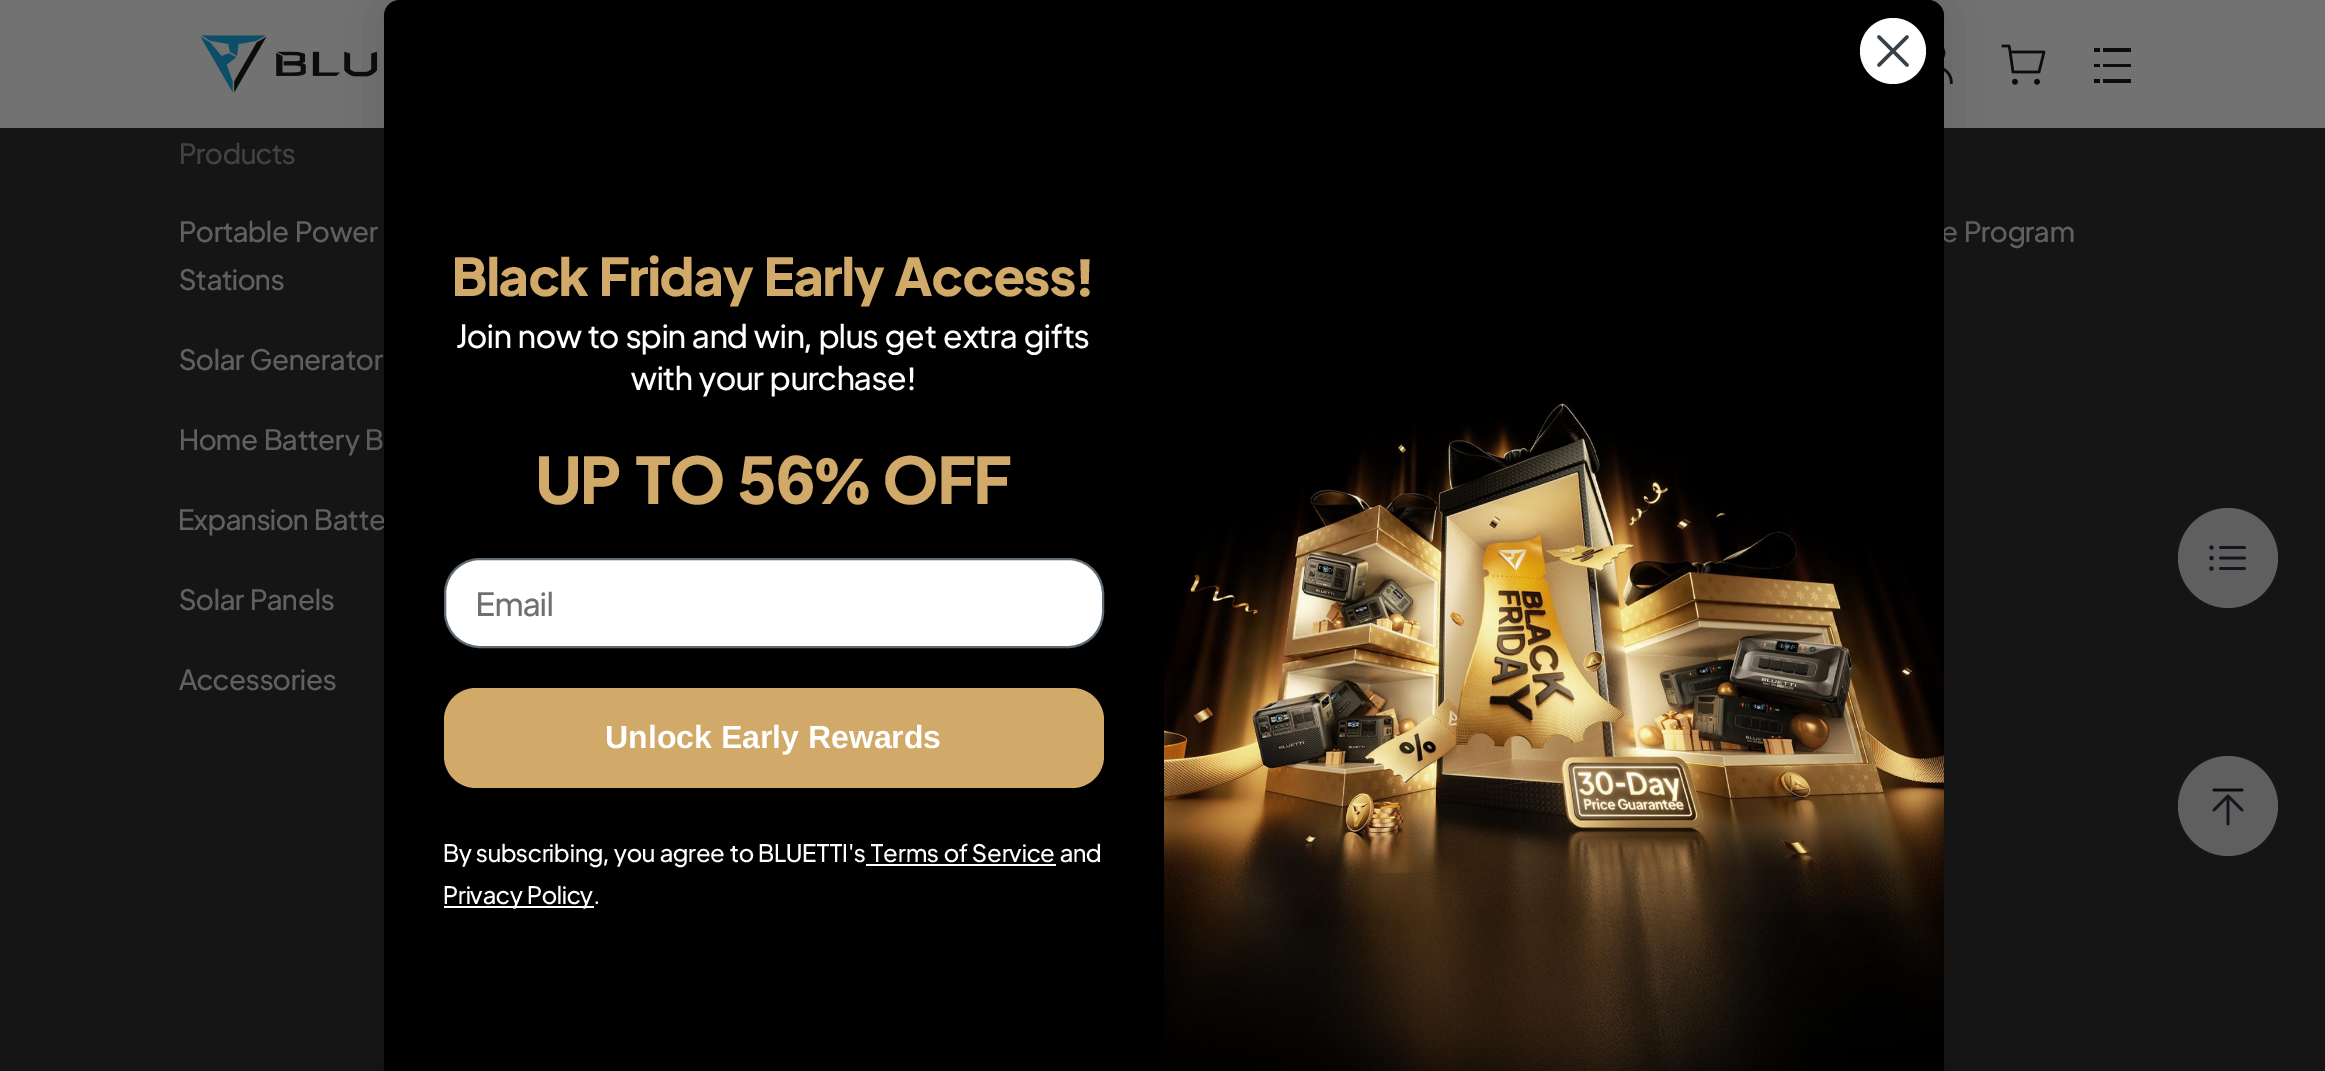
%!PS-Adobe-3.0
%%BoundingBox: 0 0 2325 1071
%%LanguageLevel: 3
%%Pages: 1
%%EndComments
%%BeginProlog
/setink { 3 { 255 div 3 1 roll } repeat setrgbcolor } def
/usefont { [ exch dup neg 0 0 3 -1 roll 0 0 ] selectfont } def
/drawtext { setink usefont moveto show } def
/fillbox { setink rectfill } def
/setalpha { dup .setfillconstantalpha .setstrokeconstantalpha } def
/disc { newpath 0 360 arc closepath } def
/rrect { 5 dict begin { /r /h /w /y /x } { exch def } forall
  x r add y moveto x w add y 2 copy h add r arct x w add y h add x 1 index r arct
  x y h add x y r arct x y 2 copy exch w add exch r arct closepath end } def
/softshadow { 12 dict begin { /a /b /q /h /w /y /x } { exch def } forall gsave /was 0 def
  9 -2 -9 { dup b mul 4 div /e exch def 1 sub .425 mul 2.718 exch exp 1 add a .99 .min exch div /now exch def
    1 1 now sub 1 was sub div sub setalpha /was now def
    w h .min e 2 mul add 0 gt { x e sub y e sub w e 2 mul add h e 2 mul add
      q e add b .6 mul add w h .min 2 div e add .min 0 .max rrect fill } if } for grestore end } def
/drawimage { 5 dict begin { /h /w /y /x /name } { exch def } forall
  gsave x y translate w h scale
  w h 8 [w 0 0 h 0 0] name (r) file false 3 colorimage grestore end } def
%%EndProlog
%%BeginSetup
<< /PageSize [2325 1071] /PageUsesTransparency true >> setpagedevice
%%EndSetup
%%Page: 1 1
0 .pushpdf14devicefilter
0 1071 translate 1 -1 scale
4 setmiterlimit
0 0 2325 1071 21 21 21 fillbox
0 0 2325 128 114 114 114 fillbox
(assets/img1.rgb) 200 35 178 58 drawimage
(assets/img2.rgb) 1944 48 9 36 drawimage
(assets/img3.rgb) 2001 44 45 41 drawimage
2103 48 28 4 12 12 12 fillbox
2094 48 6 4 12 12 12 fillbox
2103 64 28 3 12 12 12 fillbox
2094 64 6 3 12 12 12 fillbox
2103 79 28 4 12 12 12 fillbox
2094 79 6 4 12 12 12 fillbox
(Products) 179 164 /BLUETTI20-Regular 28 66 66 68 drawtext
(Portable Power) 179 242 /BLUETTI20-Regular 28 96 96 98 drawtext
(Stations) 179 290 /BLUETTI20-Regular 28 96 96 98 drawtext
(Solar Generator) 179 370 /BLUETTI20-Regular 28 96 96 98 drawtext
(Home Battery B) 179 450 /BLUETTI20-Regular 28 96 96 98 drawtext
(Expansion Batte) 179 530 /BLUETTI20-Regular 28 96 96 98 drawtext
(Solar Panels) 179 610 /BLUETTI20-Regular 28 96 96 98 drawtext
(Accessories) 179 690 /BLUETTI20-Regular 28 96 96 98 drawtext
(e Program) 1941 242 /BLUETTI20-Regular 28 96 96 98 drawtext
95 95 96 setink
2228 558 50 disc fill
(assets/img4.rgb) 2209 545 37 26 drawimage
2228 806 50 disc fill
(assets/img5.rgb) 2212 788 32 38 drawimage
0 0 0 setink
384 0 1560 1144 16 30 0.15 softshadow
400 0 moveto 1928 0 lineto 1937 0 1944 7 1944 16 curveto 1944 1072 lineto 384 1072 lineto 384 16 lineto 384 7 391 0 400 0 curveto closepath fill
(assets/img6.rgb) 1164 0 780 1071 drawimage
255 255 255 setink
1893 51 33 disc fill
55 63 71 setink
3.5 setlinewidth
1 setlinecap
1 setlinejoin
1879 37 moveto 1907 65 lineto 1879 65 moveto 1907 37 lineto closepath stroke
(Black Friday Early Access!) 452 296 /BLUETTI20-Bold 52 209 170 105 drawtext
(Join now to spin and win, plus get extra gifts) 456 348 /BLUETTI20-Regular 32 255 255 255 drawtext
(with your purchase!) 631 390 /BLUETTI20-Regular 32 255 255 255 drawtext
(UP TO 56% OFF) 536 504 /BLUETTI20-Bold 64 209 170 105 drawtext
255 255 255 setink
445 559 658 88 35 rrect gsave fill grestore
96 106 114 setink
2 setlinewidth
0 setlinecap
0 setlinejoin
stroke
(Email) 477 616 /BLUETTI20-Regular 32 110 113 113 drawtext
209 170 105 setink
444 688 660 100 32 rrect fill
(Unlock Early Rewards) 605 748 /LiberationSans-Bold 32 255 255 255 drawtext
(By subscribing, you agree to BLUETTI's Terms of Service and) 443 862 /BLUETTI20-Regular 24 255 255 255 drawtext
866 864 190 2 255 255 255 fillbox
444 906 150 2 255 255 255 fillbox
(Privacy Policy.) 443 904 /BLUETTI20-Regular 24 255 255 255 drawtext
.poppdf14devicefilter showpage
%%EOF
